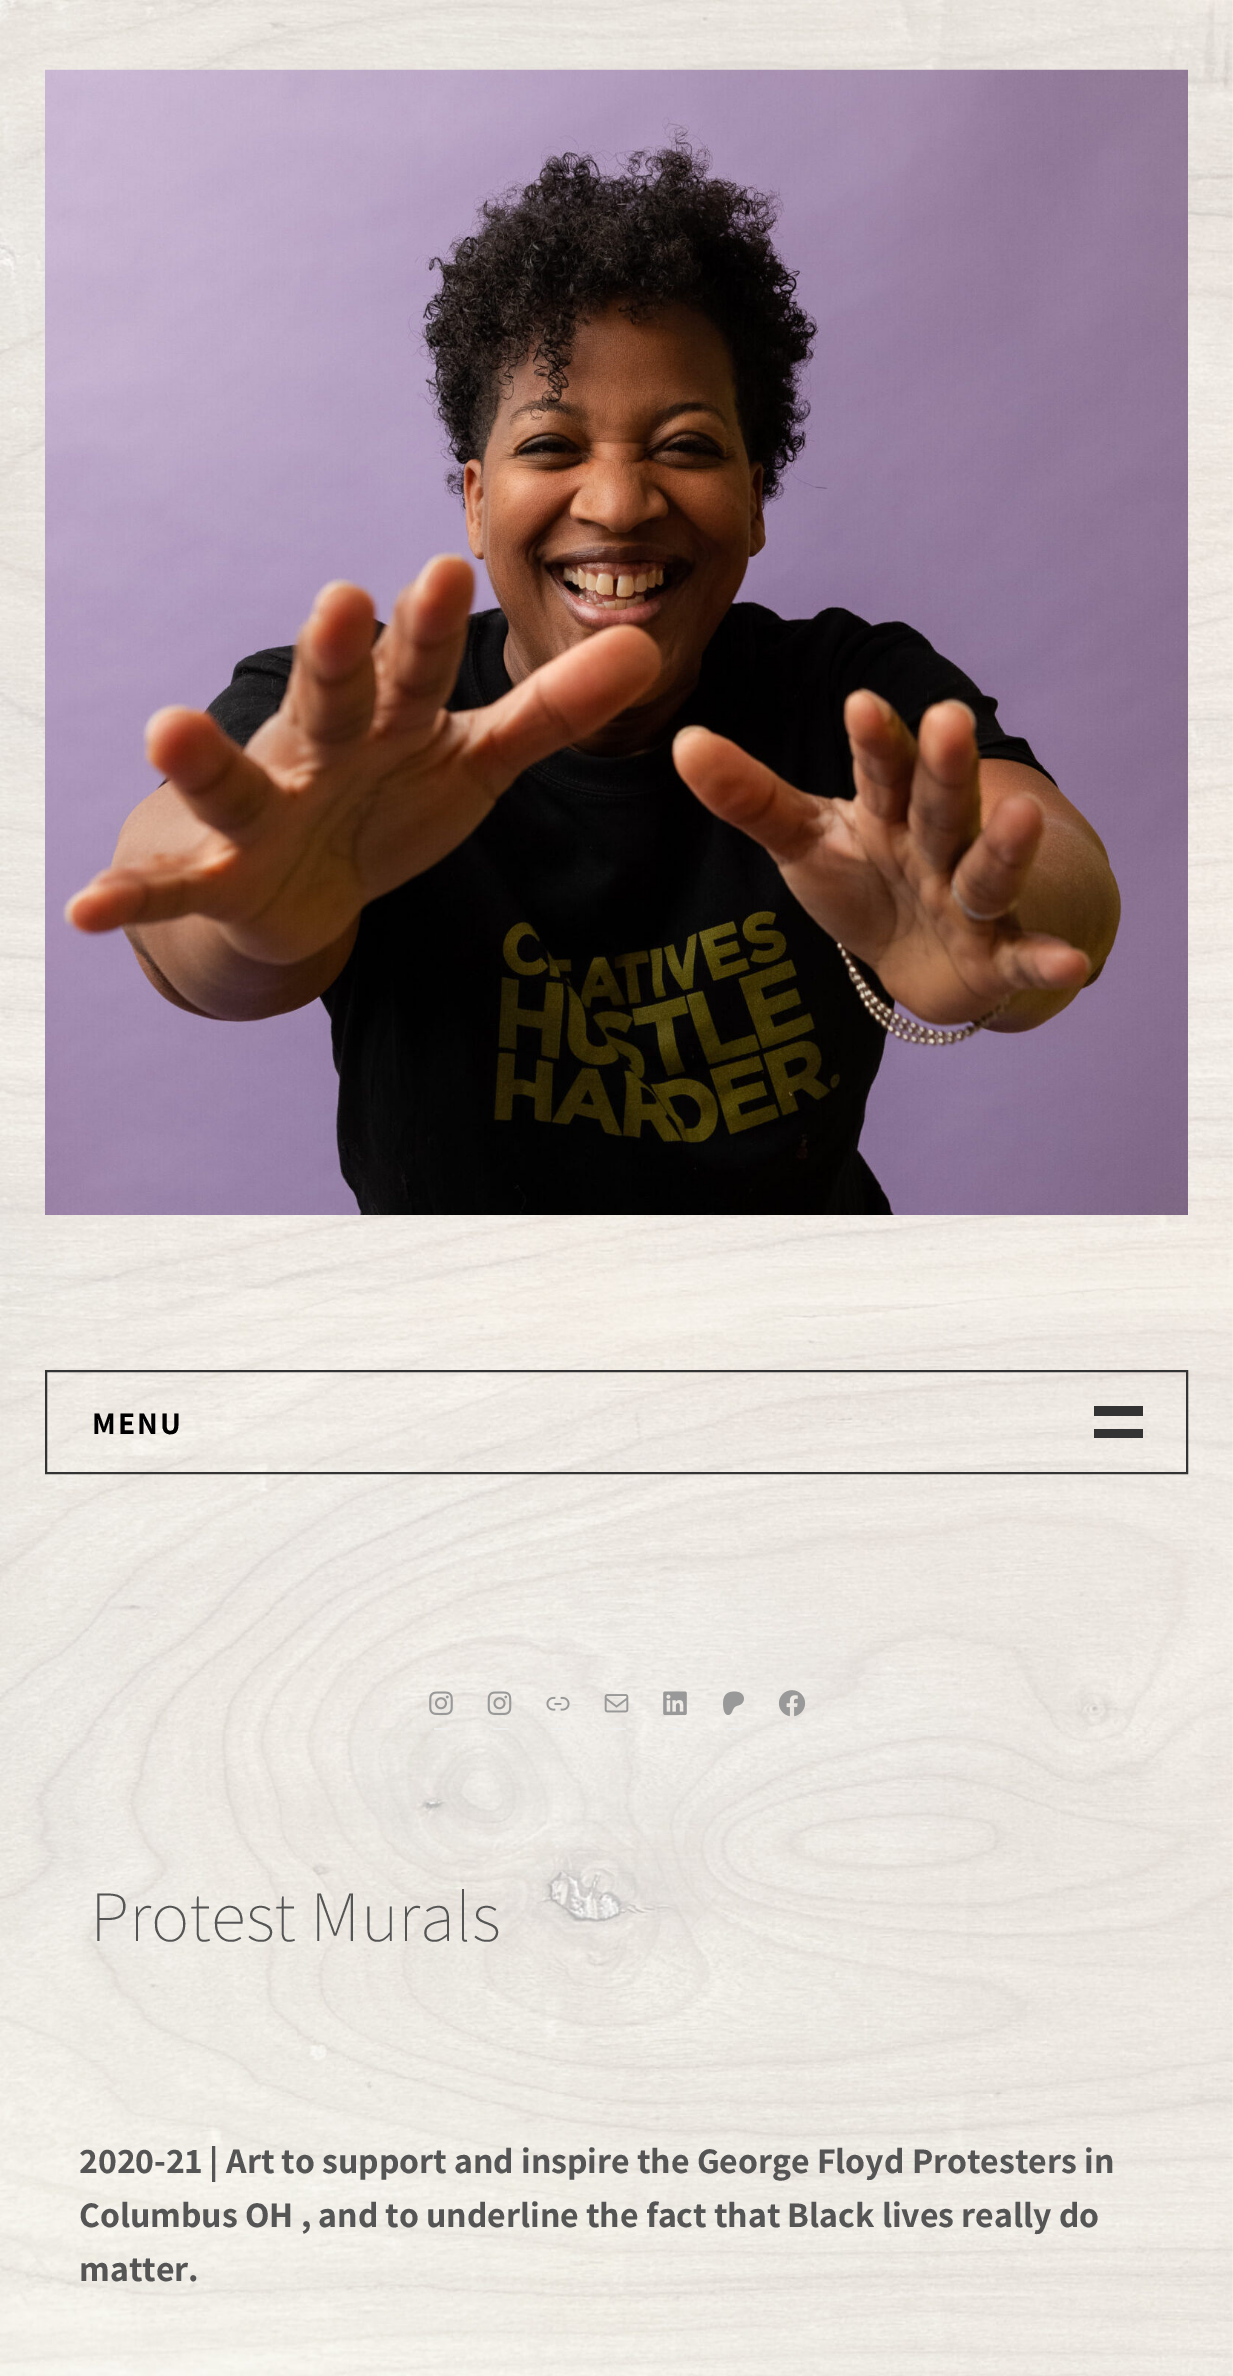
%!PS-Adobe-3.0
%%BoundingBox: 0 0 1233 2376
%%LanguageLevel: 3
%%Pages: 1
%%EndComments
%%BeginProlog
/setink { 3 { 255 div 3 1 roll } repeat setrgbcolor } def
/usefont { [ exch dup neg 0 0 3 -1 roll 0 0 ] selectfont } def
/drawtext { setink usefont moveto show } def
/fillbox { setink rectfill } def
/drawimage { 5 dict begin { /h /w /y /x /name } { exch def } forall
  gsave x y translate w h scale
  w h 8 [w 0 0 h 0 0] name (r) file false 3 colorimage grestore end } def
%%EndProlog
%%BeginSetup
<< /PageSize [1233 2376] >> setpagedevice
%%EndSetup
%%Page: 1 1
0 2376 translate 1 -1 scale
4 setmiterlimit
0 0 1233 2376 255 255 255 fillbox
(assets/img1.rgb) 0 0 1233 2376 drawimage
(assets/img2.rgb) 45 69 1143 1146 drawimage
51 51 51 setink
2 setlinewidth
46 1371 1141 102 rectstroke
1094 1406 49 10 51 51 51 fillbox
/Assistant-Bold 31.5 usefont
0 0 0 setink
92 1434 moveto 2 0 (MENU) ashow
1094 1429 49 9 51 51 51 fillbox
434 1728 16 2 238 238 238 fillbox
(assets/img3.rgb) 429 1691 24 25 drawimage
493 1728 16 2 238 238 238 fillbox
(assets/img4.rgb) 487 1691 25 25 drawimage
551 1728 16 2 238 238 238 fillbox
(assets/img5.rgb) 546 1696 24 15 drawimage
610 1728 16 2 238 238 238 fillbox
(assets/img6.rgb) 604 1694 25 19 drawimage
668 1728 16 2 238 238 238 fillbox
(assets/img7.rgb) 663 1691 24 25 drawimage
727 1728 16 2 238 238 238 fillbox
(assets/img8.rgb) 723 1691 21 24 drawimage
785 1728 16 2 238 238 238 fillbox
(assets/img9.rgb) 778 1690 28 27 drawimage
(Protest Murals) 90 1941 /Assistant-ExtraLight 72 85 85 85 drawtext
(2020-21 | Art to support and inspire the George Floyd Protesters in) 79 2173 /Assistant-Bold 36 85 85 85 drawtext
(Columbus OH , and to underline the fact that Black lives really do) 79 2227 /Assistant-Bold 36 85 85 85 drawtext
(matter.) 79 2281 /Assistant-Bold 36 85 85 85 drawtext
showpage
%%EOF
